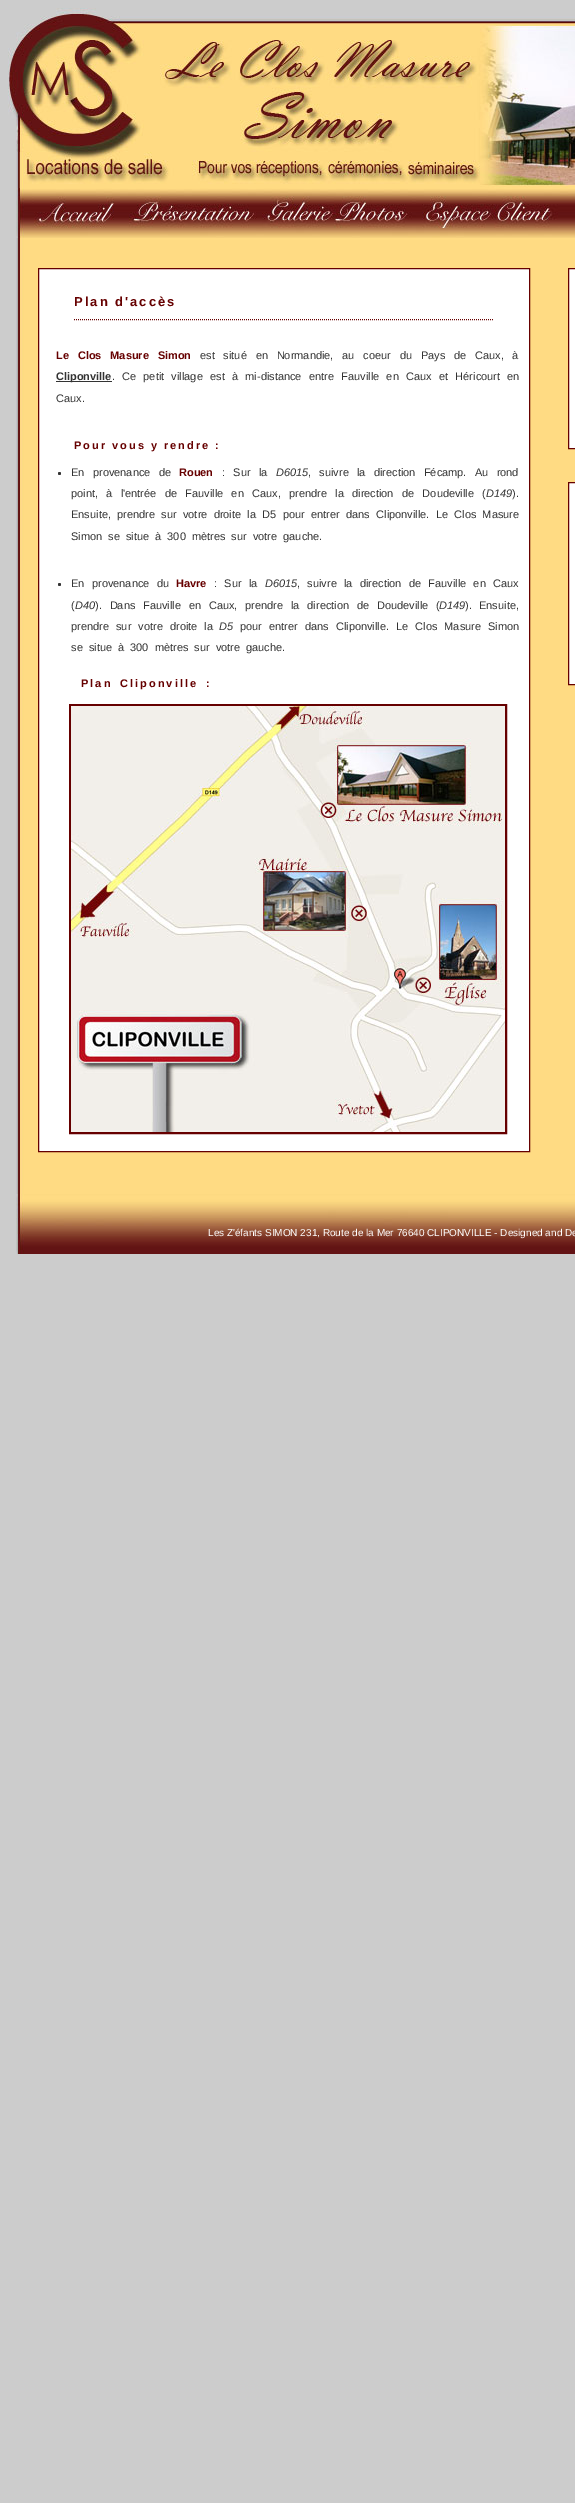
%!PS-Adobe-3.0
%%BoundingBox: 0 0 575 2503
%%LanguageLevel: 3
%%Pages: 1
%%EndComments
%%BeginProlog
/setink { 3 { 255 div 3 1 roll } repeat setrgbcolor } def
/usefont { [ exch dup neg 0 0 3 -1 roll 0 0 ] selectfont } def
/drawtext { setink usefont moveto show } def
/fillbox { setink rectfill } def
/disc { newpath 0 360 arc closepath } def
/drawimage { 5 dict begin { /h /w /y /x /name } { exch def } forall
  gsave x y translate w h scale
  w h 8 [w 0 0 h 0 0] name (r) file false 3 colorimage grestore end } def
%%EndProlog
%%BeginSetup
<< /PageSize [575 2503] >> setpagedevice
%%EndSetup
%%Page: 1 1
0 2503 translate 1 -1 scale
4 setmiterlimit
0 0 575 2503 204 204 204 fillbox
(assets/img1.rgb) 8 8 567 180 drawimage
(assets/img2.rgb) 16 188 559 50 drawimage
(assets/img3.rgb) 34 196 80 32 drawimage
(assets/img4.rgb) 129 196 128 32 drawimage
(assets/img5.rgb) 262 196 150 32 drawimage
(assets/img6.rgb) 422 196 136 32 drawimage
(assets/img7.rgb) 16 238 559 956 drawimage
255 255 255 setink
38.5 268.5 moveto 529.5 268.5 lineto 529.5 1151.5 lineto 38.5 1151.5 lineto closepath gsave fill grestore
102 0 0 setink
stroke
[1 1] 0 setdash
74 319.5 moveto 494 319.5 lineto stroke
/LiberationSans-Bold 13 usefont
74 306 moveto 2 0 (Plan d'accès) ashow
/LiberationSans-Bold 11 usefont
56 359 moveto 5.75 0 32 (Le Clos Masure Simon) widthshow
/LiberationSans-Regular 11 usefont
51 51 51 setink
200 359 moveto 5.75 0 32 (est situé en Normandie, au coeur du Pays de Caux, à) widthshow
56 381 56 1 51 51 51 fillbox
(Cliponville) 56 380 /LiberationSans-Bold 11 51 51 51 drawtext
(.) 112 380 /LiberationSans-Regular 11 51 51 51 drawtext
122 380 moveto 4.25 0 32 (Ce petit village est à mi-distance entre Fauville en Caux et Héricourt en) widthshow
(Caux.) 56 402 /LiberationSans-Regular 11 51 51 51 drawtext
/LiberationSans-Bold 11 usefont
102 0 0 setink
74 449 moveto 2 0 (Pour vous y rendre :) ashow
51 51 51 setink
59.5 473.5 1.5 disc fill
/LiberationSans-Regular 11 usefont
71 476 moveto 5.25 0 32 (En provenance de) widthshow
(Rouen) 179 476 /LiberationSans-Bold 11 102 0 0 drawtext
/LiberationSans-Regular 11 usefont
51 51 51 setink
222 476 moveto 5.25 0 32 (: Sur la) widthshow
(D6015) 276 476 /LiberationSans-Italic 11 51 51 51 drawtext
/LiberationSans-Regular 11 usefont
308 476 moveto 5.25 0 32 (, suivre la direction Fécamp. Au rond) widthshow
71 497 moveto 5.25 0 32 (point, à l'entrée de Fauville en Caux, prendre la direction de Doudeville \() widthshow
(D149) 486 497 /LiberationSans-Italic 11 51 51 51 drawtext
(\).) 512 497 /LiberationSans-Regular 11 51 51 51 drawtext
71 518 moveto 3.25 0 32 (Ensuite, prendre sur votre droite la D5 pour entrer dans Cliponville. Le Clos Masure) widthshow
71 540 moveto 3 0 32 (Simon se situe à 300 mètres sur votre gauche.) widthshow
59.5 584.5 1.5 disc fill
71 587 moveto 4.25 0 32 (En provenance du) widthshow
(Havre) 176 587 /LiberationSans-Bold 11 102 0 0 drawtext
/LiberationSans-Regular 11 usefont
51 51 51 setink
214 587 moveto 4.25 0 32 (: Sur la) widthshow
(D6015) 265 587 /LiberationSans-Italic 11 51 51 51 drawtext
/LiberationSans-Regular 11 usefont
297 587 moveto 4.25 0 32 (, suivre la direction de Fauville en Caux) widthshow
(\() 71 609 /LiberationSans-Regular 11 51 51 51 drawtext
(D40) 75 609 /LiberationSans-Italic 11 51 51 51 drawtext
/LiberationSans-Regular 11 usefont
95 609 moveto 4.75 0 32 (\). Dans Fauville en Caux, prendre la direction de Doudeville \() widthshow
(D149) 439 609 /LiberationSans-Italic 11 51 51 51 drawtext
(\).) 465 609 /LiberationSans-Regular 11 51 51 51 drawtext
(Ensuite,) 479 609 /LiberationSans-Regular 11 51 51 51 drawtext
71 630 moveto 4 0 32 (prendre sur votre droite la) widthshow
(D5) 219 630 /LiberationSans-Italic 11 51 51 51 drawtext
/LiberationSans-Regular 11 usefont
240 630 moveto 4 0 32 (pour entrer dans Cliponville. Le Clos Masure Simon) widthshow
71 651 moveto 3 0 32 (se situe à 300 mètres sur votre gauche.) widthshow
/LiberationSans-Bold 11 usefont
102 0 0 setink
81 687 moveto 3 0 32 2 0 (Plan Cliponville :) awidthshow
2 setlinewidth
[] 0 setdash
70 705 436 428 rectstroke
(assets/img8.rgb) 71 706 434 426 drawimage
255 255 255 setink
568.5 268.5 moveto 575.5 268.5 lineto 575.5 448.5 lineto 568.5 448.5 lineto closepath gsave fill grestore
102 0 0 setink
1 setlinewidth
stroke
255 255 255 setink
568.5 482.5 moveto 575.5 482.5 lineto 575.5 684.5 lineto 568.5 684.5 lineto closepath gsave fill grestore
102 0 0 setink
stroke
(assets/img9.rgb) 16 1194 559 60 drawimage
(Les Z'éfants SIMON 231, Route de la Mer 76640 CLIPONVILLE - Designed and De) 208 1236 /LiberationSans-Regular 10 255 255 255 drawtext
showpage
%%EOF
